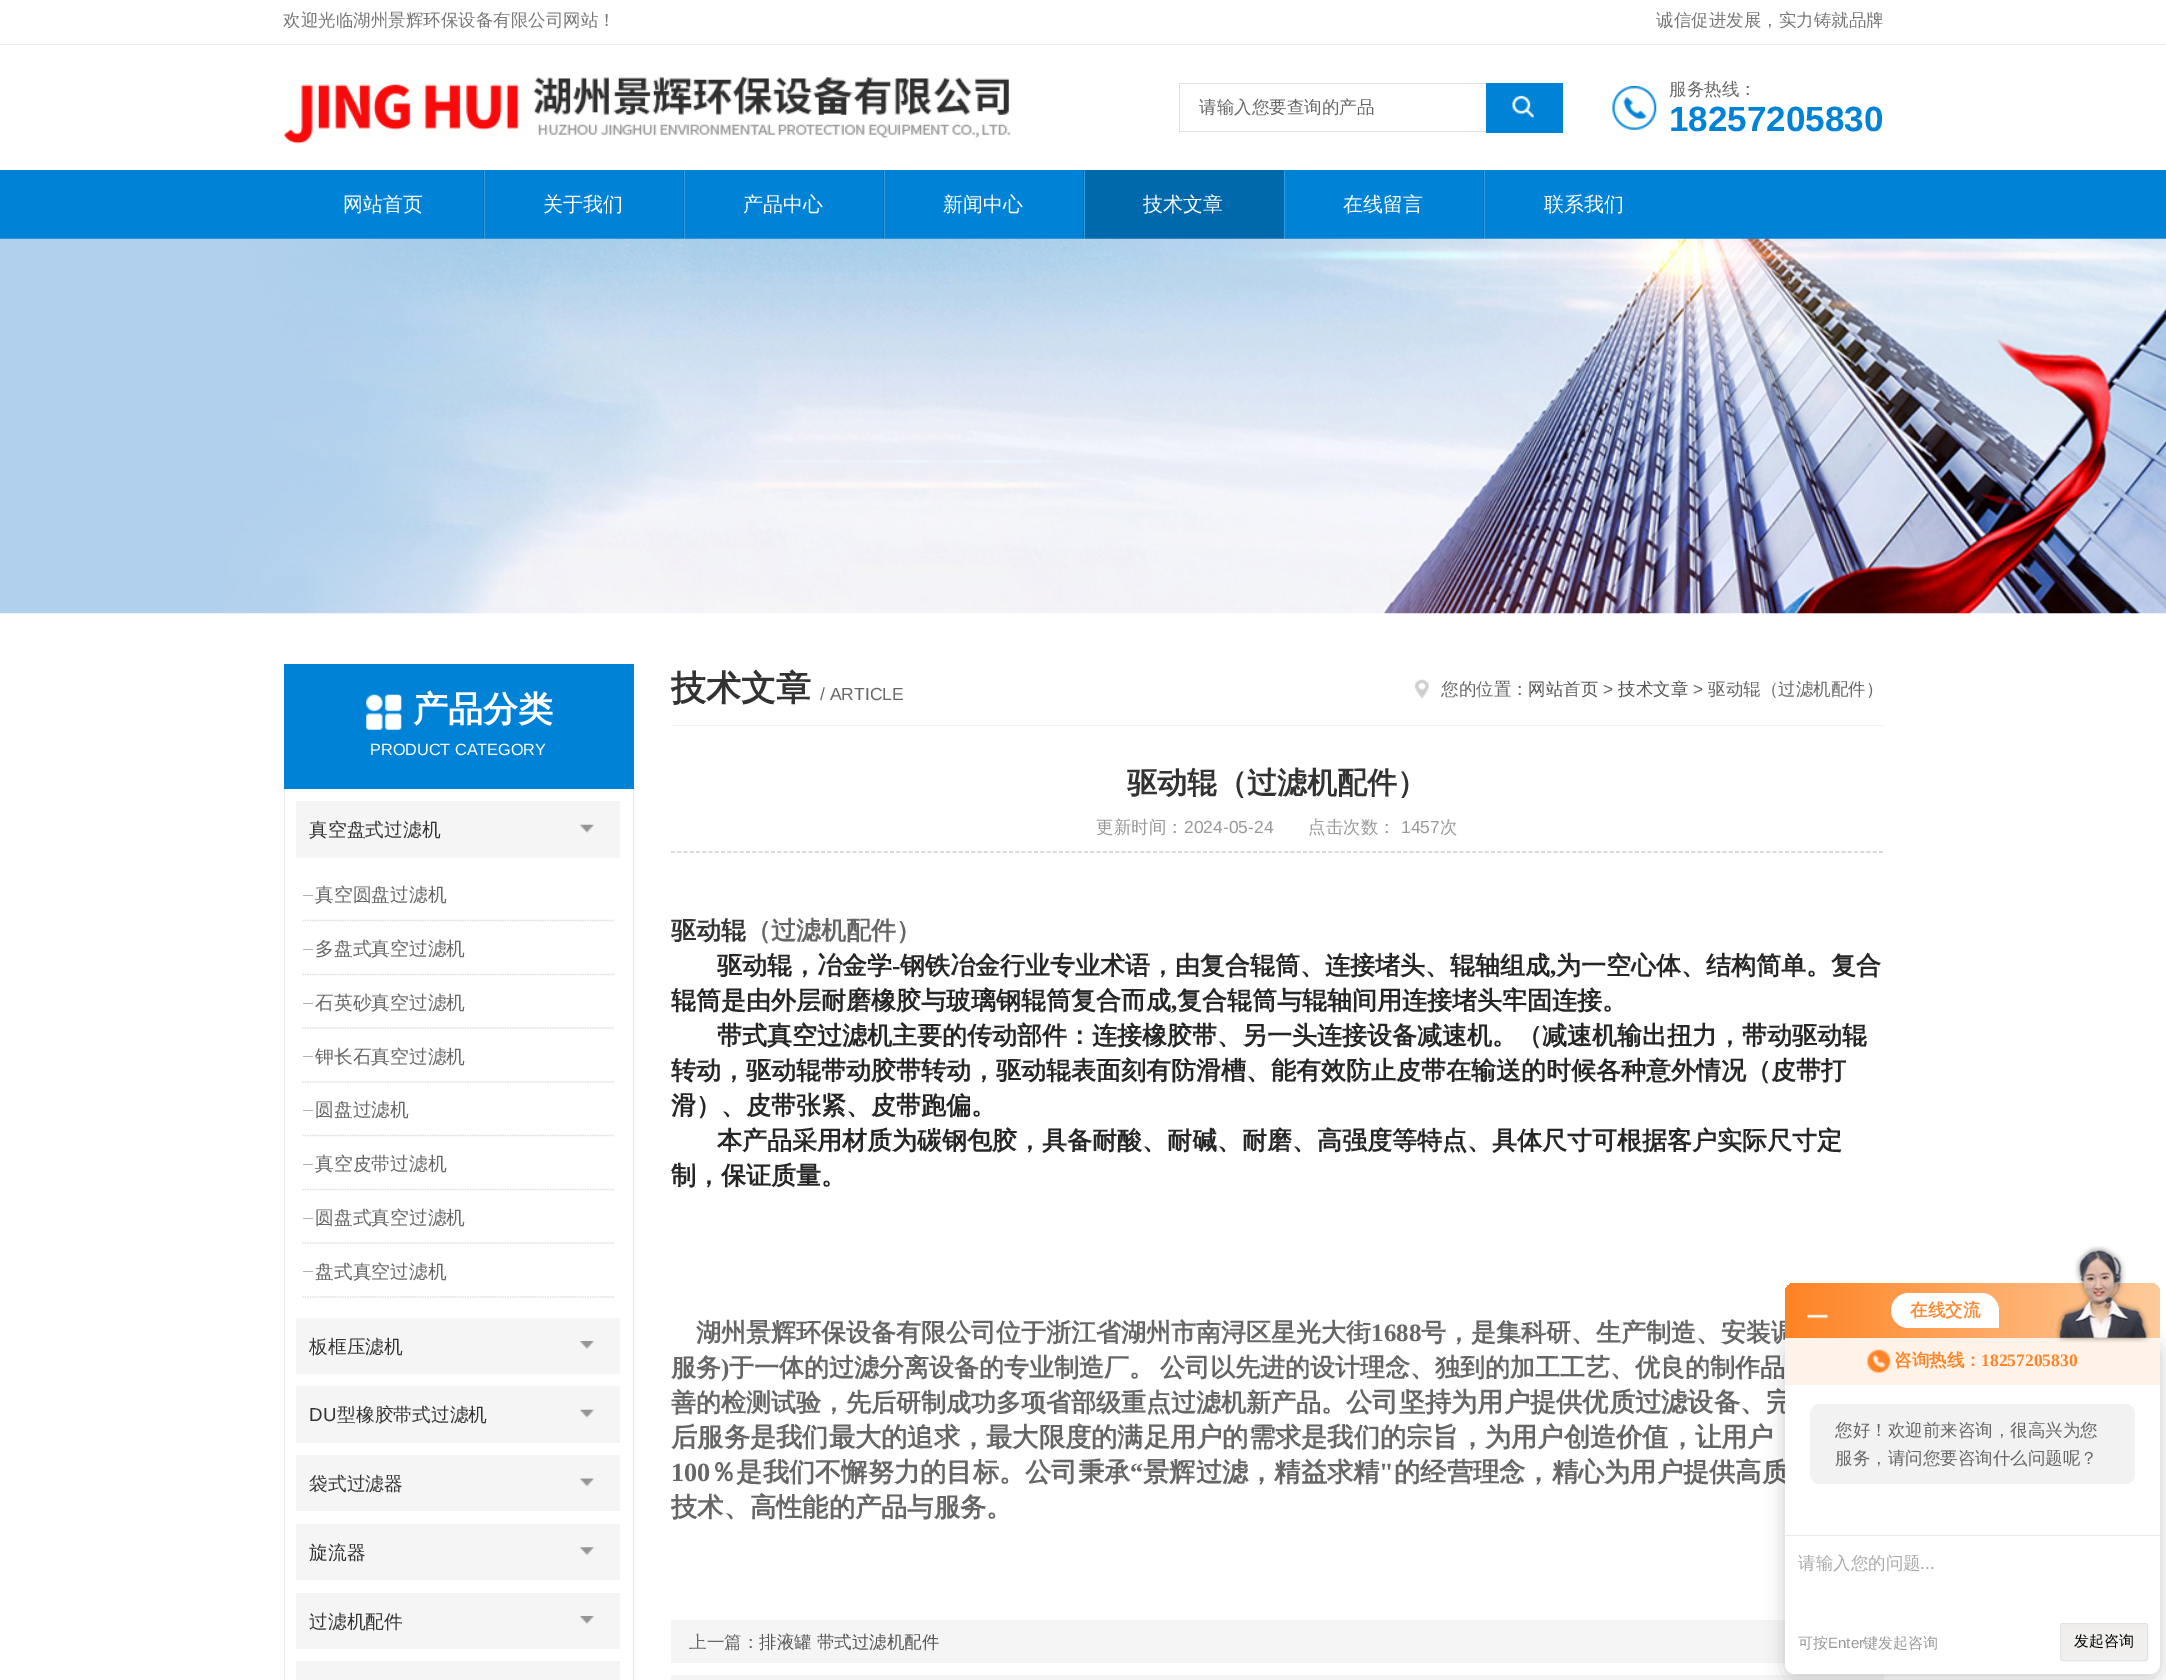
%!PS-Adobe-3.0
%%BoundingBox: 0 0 2166 1680
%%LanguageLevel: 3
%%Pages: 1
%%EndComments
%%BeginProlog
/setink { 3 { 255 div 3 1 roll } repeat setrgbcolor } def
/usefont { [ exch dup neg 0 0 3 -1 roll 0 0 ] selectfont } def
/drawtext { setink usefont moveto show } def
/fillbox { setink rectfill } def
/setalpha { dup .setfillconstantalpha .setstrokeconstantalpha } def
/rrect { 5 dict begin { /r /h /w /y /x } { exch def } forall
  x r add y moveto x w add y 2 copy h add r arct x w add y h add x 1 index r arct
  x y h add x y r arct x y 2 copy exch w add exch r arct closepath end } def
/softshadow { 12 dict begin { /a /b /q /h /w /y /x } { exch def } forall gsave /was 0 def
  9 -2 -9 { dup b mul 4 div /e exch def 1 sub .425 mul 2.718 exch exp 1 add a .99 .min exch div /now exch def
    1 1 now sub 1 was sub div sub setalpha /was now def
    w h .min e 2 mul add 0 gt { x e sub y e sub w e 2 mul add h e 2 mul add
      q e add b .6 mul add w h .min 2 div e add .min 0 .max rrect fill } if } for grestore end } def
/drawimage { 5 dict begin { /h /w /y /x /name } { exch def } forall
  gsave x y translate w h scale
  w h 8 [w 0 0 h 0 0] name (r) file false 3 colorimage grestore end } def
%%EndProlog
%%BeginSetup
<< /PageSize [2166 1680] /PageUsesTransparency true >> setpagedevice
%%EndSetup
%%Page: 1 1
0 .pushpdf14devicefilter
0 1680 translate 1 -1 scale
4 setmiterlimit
0 0 2166 1680 255 255 255 fillbox
0 44 2166 1 234 234 234 fillbox
(欢迎光临湖州景辉环保设备有限公司网站！) 283 26 /WenQuanYiZenHei-Medium 17.5 119 119 119 drawtext
(诚信促进发展，实力铸就品牌) 1656 26 /WenQuanYiZenHei-Medium 17.5 119 119 119 drawtext
(assets/img1.rgb) 283 44 795 100 drawimage
1179 83 307 1 223 223 223 fillbox
1179 131 307 1 223 223 223 fillbox
1179 83 1 50 223 223 223 fillbox
(请输入您要查询的产品) 1199 113 /WenQuanYiZenHei-Medium 17.5 102 102 102 drawtext
1486 83 77 50 0 131 214 fillbox
(assets/img2.rgb) 1512 95 22 23 drawimage
(assets/img3.rgb) 1612 86 45 44 drawimage
(服务热线：) 1669 95 /WenQuanYiZenHei-Medium 17.5 102 102 102 drawtext
(18257205830) 1669 131 /LiberationSans-Bold 35 0 131 214 drawtext
0 170 2166 69 0 131 214 fillbox
483 170 1 69 0 105 171 fillbox
(网站首页) 343 211 /WenQuanYiZenHei-Medium 20 255 255 255 drawtext
683 170 1 69 0 105 171 fillbox
484 170 1 69 51 156 222 fillbox
(关于我们) 543 211 /WenQuanYiZenHei-Medium 20 255 255 255 drawtext
883 170 1 69 0 105 171 fillbox
684 170 1 69 51 156 222 fillbox
(产品中心) 743 211 /WenQuanYiZenHei-Medium 20 255 255 255 drawtext
1083 170 1 69 0 105 171 fillbox
884 170 1 69 51 156 222 fillbox
(新闻中心) 943 211 /WenQuanYiZenHei-Medium 20 255 255 255 drawtext
1085 170 199 69 0 105 171 fillbox
1084 170 1 69 51 156 222 fillbox
(技术文章) 1143 211 /WenQuanYiZenHei-Medium 20 255 255 255 drawtext
1483 170 1 69 0 105 171 fillbox
1284 170 1 69 51 156 222 fillbox
(在线留言) 1343 211 /WenQuanYiZenHei-Medium 20 255 255 255 drawtext
1484 170 1 69 51 156 222 fillbox
(联系我们) 1544 211 /WenQuanYiZenHei-Medium 20 255 255 255 drawtext
(assets/img4.rgb) 0 238 2166 376 drawimage
284 664 350 125 0 131 214 fillbox
(assets/img5.rgb) 366 694 36 36 drawimage
(产品分类) 413 721 /WenQuanYiZenHei-Bold 35 255 255 255 drawtext
(PRODUCT CATEGORY) 370 755 /LiberationSans-Regular 16.25 255 255 255 drawtext
633 789 1 891 232 232 232 fillbox
284 789 1 891 232 232 232 fillbox
296 801 324 57 245 245 245 fillbox
(真空盘式过滤机) 309 836 /WenQuanYiZenHei-Medium 18.75 51 51 51 drawtext
(assets/img6.rgb) 580 824 14 9 drawimage
222 222 222 setink
1.2 setlinewidth
[1.25 1.25] 0 setdash
302.5 920.5 moveto 614 920.5 lineto stroke
303 895 10 1 179 179 179 fillbox
(真空圆盘过滤机) 315 901 /WenQuanYiZenHei-Medium 18.75 102 102 102 drawtext
222 222 222 setink
302.5 974.5 moveto 614 974.5 lineto stroke
303 949 10 1 179 179 179 fillbox
(多盘式真空过滤机) 315 955 /WenQuanYiZenHei-Medium 18.75 102 102 102 drawtext
222 222 222 setink
302.5 1028 moveto 614 1028 lineto stroke
303 1003 10 1 179 179 179 fillbox
(石英砂真空过滤机) 315 1009 /WenQuanYiZenHei-Medium 18.75 102 102 102 drawtext
222 222 222 setink
302.5 1082 moveto 614 1082 lineto stroke
303 1056 10 1 179 179 179 fillbox
(钾长石真空过滤机) 315 1063 /WenQuanYiZenHei-Medium 18.75 102 102 102 drawtext
222 222 222 setink
302.5 1135.5 moveto 614 1135.5 lineto stroke
303 1110 10 1 179 179 179 fillbox
(圆盘过滤机) 315 1116 /WenQuanYiZenHei-Medium 18.75 102 102 102 drawtext
222 222 222 setink
302.5 1189.5 moveto 614 1189.5 lineto stroke
303 1164 10 1 179 179 179 fillbox
(真空皮带过滤机) 315 1170 /WenQuanYiZenHei-Medium 18.75 102 102 102 drawtext
222 222 222 setink
302.5 1243 moveto 614 1243 lineto stroke
303 1218 10 1 179 179 179 fillbox
(圆盘式真空过滤机) 315 1224 /WenQuanYiZenHei-Medium 18.75 102 102 102 drawtext
222 222 222 setink
302.5 1297 moveto 614 1297 lineto stroke
303 1271 10 1 179 179 179 fillbox
(盘式真空过滤机) 315 1278 /WenQuanYiZenHei-Medium 18.75 102 102 102 drawtext
296 1318 324 56 245 245 245 fillbox
(板框压滤机) 309 1353 /WenQuanYiZenHei-Medium 18.75 51 51 51 drawtext
(assets/img7.rgb) 580 1341 14 8 drawimage
296 1386 324 57 245 245 245 fillbox
(DU) 309 1421 /LiberationSans-Regular 18.75 51 51 51 drawtext
(型橡胶带式过滤机) 337 1421 /WenQuanYiZenHei-Medium 18.75 51 51 51 drawtext
(assets/img6.rgb) 580 1409 14 9 drawimage
296 1455 324 56 245 245 245 fillbox
(袋式过滤器) 309 1490 /WenQuanYiZenHei-Medium 18.75 51 51 51 drawtext
(assets/img8.rgb) 580 1478 14 9 drawimage
296 1524 324 56 245 245 245 fillbox
(旋流器) 309 1559 /WenQuanYiZenHei-Medium 18.75 51 51 51 drawtext
(assets/img9.rgb) 580 1547 14 8 drawimage
296 1593 324 56 245 245 245 fillbox
(过滤机配件) 309 1628 /WenQuanYiZenHei-Medium 18.75 51 51 51 drawtext
(assets/img7.rgb) 580 1616 14 8 drawimage
296 1661 324 19 245 245 245 fillbox
671 725 1213 1 241 241 241 fillbox
(技术文章) 671 700 /WenQuanYiZenHei-Bold 35 51 51 51 drawtext
(/ ARTICLE) 820 700 /LiberationSans-Regular 17.5 102 102 102 drawtext
(assets/img10.rgb) 1415 679 14 20 drawimage
(您的位置：) 1441 695 /WenQuanYiZenHei-Medium 17.5 102 102 102 drawtext
(网站首页) 1528 695 /WenQuanYiZenHei-Medium 17.5 85 85 85 drawtext
(>) 1603 695 /LiberationSans-Regular 17.5 102 102 102 drawtext
(技术文章) 1618 695 /WenQuanYiZenHei-Medium 17.5 85 85 85 drawtext
(>) 1693 695 /LiberationSans-Regular 17.5 102 102 102 drawtext
(驱动辊（过滤机配件）) 1708 695 /WenQuanYiZenHei-Medium 17.5 102 102 102 drawtext
(驱动辊（过滤机配件）) 1127 793 /WenQuanYiZenHei-Bold 30 51 51 51 drawtext
204 204 204 setink
[3.75 2.51] 0 setdash
671 852 moveto 1884 852 lineto stroke
(更新时间：) 1096 833 /WenQuanYiZenHei-Medium 17.5 153 153 153 drawtext
(2024-05-24) 1184 833 /LiberationSans-Regular 17.5 153 153 153 drawtext
(点击次数：) 1308 833 /WenQuanYiZenHei-Medium 17.5 153 153 153 drawtext
(1457) 1401 833 /LiberationSans-Regular 17.5 153 153 153 drawtext
(次) 1440 833 /WenQuanYiZenHei-Medium 17.5 153 153 153 drawtext
(驱动辊) 671 939 /WenQuanYiZenHei-Bold 25 51 51 51 drawtext
(（过滤机配件）) 746 939 /WenQuanYiZenHei-Bold 25 102 102 102 drawtext
(驱动辊，冶金学) 717 974 /WenQuanYiZenHei-Bold 25 38 38 38 drawtext
(-) 892 974 /LiberationSerif-Bold 25 38 38 38 drawtext
(钢铁冶金行业专业术语，由复合辊筒、连接堵头、辊轴组成) 900 974 /WenQuanYiZenHei-Bold 25 38 38 38 drawtext
(为一空心体、结构简单。复合) 1556 974 /WenQuanYiZenHei-Bold 25 38 38 38 drawtext
(,) 1550 974 /LiberationSerif-Bold 25 38 38 38 drawtext
(辊筒是由外层耐磨橡胶与玻璃钢辊筒复合而成) 671 1009 /WenQuanYiZenHei-Bold 25 38 38 38 drawtext
(,) 1171 1009 /LiberationSerif-Bold 25 38 38 38 drawtext
(复合辊筒与辊轴间用连接堵头牢固连接。) 1177 1009 /WenQuanYiZenHei-Bold 25 38 38 38 drawtext
(带式真空过滤机主要的传动部件：连接橡胶带、另一头连接设备减速机。（减速机输出扭力，带动驱动辊) 717 1044 /WenQuanYiZenHei-Bold 25 38 38 38 drawtext
(转动，驱动辊带动胶带转动，驱动辊表面刻有防滑槽、能有效防止皮带在输送的时候各种意外情况（皮带打) 671 1079 /WenQuanYiZenHei-Bold 25 38 38 38 drawtext
(滑）、皮带张紧、皮带跑偏。) 671 1114 /WenQuanYiZenHei-Bold 25 38 38 38 drawtext
(本产品采用材质为碳钢包胶，具备耐酸、耐碱、耐磨、高强度等特点、具体尺寸可根据客户实际尺寸定) 717 1149 /WenQuanYiZenHei-Bold 25 38 38 38 drawtext
(制，保证质量。) 671 1184 /WenQuanYiZenHei-Bold 25 38 38 38 drawtext
(湖州景辉环保设备有限公司位于浙江省湖州市南浔区星光大街) 696 1341 /WenQuanYiZenHei-Bold 25 102 102 102 drawtext
(1688) 1371 1341 /LiberationSerif-Bold 25 102 102 102 drawtext
(号，是集科研、生产制造、安装调) 1421 1341 /WenQuanYiZenHei-Bold 25 102 102 102 drawtext
(服务) 671 1376 /WenQuanYiZenHei-Bold 25 102 102 102 drawtext
(\)) 721 1376 /LiberationSerif-Bold 25 102 102 102 drawtext
/WenQuanYiZenHei-Bold 25 usefont
729 1376 moveto -1 0 32 (于一体的过滤分离设备的专业制造厂。 公司以先进的设计理念、独到的加工工艺、优良的制作品) widthshow
(善的检测试验，先后研制成功多项省部级重点过滤机新产品。) 671 1411 /WenQuanYiZenHei-Bold 25 102 102 102 drawtext
(公司坚持为用户提供优质过滤设备、完) 1346 1411 /WenQuanYiZenHei-Bold 26.25 102 102 102 drawtext
(后服务是我们最大的追求，最大限度的满足用户的需求是我们的宗旨，为用户创造价值，让用户) 671 1446 /WenQuanYiZenHei-Bold 26.25 102 102 102 drawtext
(100) 671 1481 /LiberationSerif-Bold 26.25 102 102 102 drawtext
(％是我们不懈努力的目标。公司秉承) 710 1481 /WenQuanYiZenHei-Bold 26.25 102 102 102 drawtext
(“) 1130 1481 /LiberationSerif-Bold 26.25 102 102 102 drawtext
(景辉过滤，精益求精) 1143 1481 /WenQuanYiZenHei-Bold 26.25 102 102 102 drawtext
(") 1379 1481 /LiberationSerif-Bold 26.25 102 102 102 drawtext
(的经营理念，精心为用户提供高质) 1394 1481 /WenQuanYiZenHei-Bold 26.25 102 102 102 drawtext
(技术、高性能的产品与服务。) 671 1516 /WenQuanYiZenHei-Bold 26.25 102 102 102 drawtext
671 1620 1114 43 245 245 245 fillbox
(上一篇：) 689 1648 /WenQuanYiZenHei-Medium 17.5 102 102 102 drawtext
(排液罐 带式过滤机配件) 759 1648 /WenQuanYiZenHei-Medium 17.5 85 85 85 drawtext
671 1675 1213 5 245 245 245 fillbox
0 0 0 setink
1785 1343 375 336 10 10 0.2 softshadow
gsave 1795 1283 moveto 2150 1283 lineto 2155.5 1283 2160 1287.5 2160 1293 curveto 2160 1338 lineto 1785 1338 lineto 1785 1293 lineto 1785 1287.5 1789.5 1283 1795 1283 curveto closepath clip newpath
<< /ShadingType 2 /ColorSpace /DeviceRGB /Coords [1785 1310 2160 1310] /Extend [true true] /Function << /FunctionType 2 /Domain [0 1] /C0 [1 0.514 0.141] /C1 [0.996 0.796 0.612] /N 1 >> >> shfill grestore
(assets/img11.rgb) 1807 1314 21 5 drawimage
255 255 255 setink
1908.5 1293 moveto 1981.5 1293 lineto 1991 1293 1999 1301 1999 1310.5 curveto 1999 1328 lineto 1908.5 1328 lineto 1899 1328 1891 1320 1891 1310.5 curveto 1891 1301 1899 1293 1908.5 1293 curveto closepath fill
(在线交流) 1910 1316 /WenQuanYiZenHei-Bold 17.5 251 139 54 drawtext
255 255 255 setink
1785 1338 moveto 2160 1338 lineto 2160 1664 lineto 2160 1669.5 2155.5 1674 2150 1674 curveto 1795 1674 lineto 1789.5 1674 1785 1669.5 1785 1664 curveto closepath fill
1785 1338 375 47 255 243 233 fillbox
(assets/img12.rgb) 2055 1246 96 97 drawimage
(assets/img13.rgb) 1867 1349 24 25 drawimage
(咨询热线：) 1894 1366 /WenQuanYiZenHei-Bold 17.5 255 132 38 drawtext
(18257205830) 1981 1366 /LiberationSerif-Bold 17.5 255 132 38 drawtext
242 242 242 setink
1810 1404 325 80 10 rrect fill
(您好！欢迎前来咨询，很高兴为您) 1835 1436 /WenQuanYiZenHei-Medium 17.5 102 102 102 drawtext
(服务，请问您要咨询什么问题呢？) 1835 1464 /WenQuanYiZenHei-Medium 17.5 102 102 102 drawtext
1785 1535 375 1 234 234 234 fillbox
(请输入您的问题) 1798 1569 /WenQuanYiZenHei-Medium 17.5 170 170 170 drawtext
(...) 1920 1569 /LiberationSans-Regular 17.5 170 170 170 drawtext
(可按) 1798 1648 /WenQuanYiZenHei-Medium 15 153 153 153 drawtext
(Enter) 1828 1648 /LiberationSans-Regular 15 153 153 153 drawtext
(键发起咨询) 1863 1648 /WenQuanYiZenHei-Medium 15 153 153 153 drawtext
240 239 237 setink
2060.5 1623.5 87 37 2 rrect gsave fill grestore
226 226 226 setink
1 setlinewidth
[] 0 setdash
stroke
(发起咨询) 2074 1646 /WenQuanYiZenHei-Medium 15 0 0 0 drawtext
.poppdf14devicefilter showpage
%%EOF
